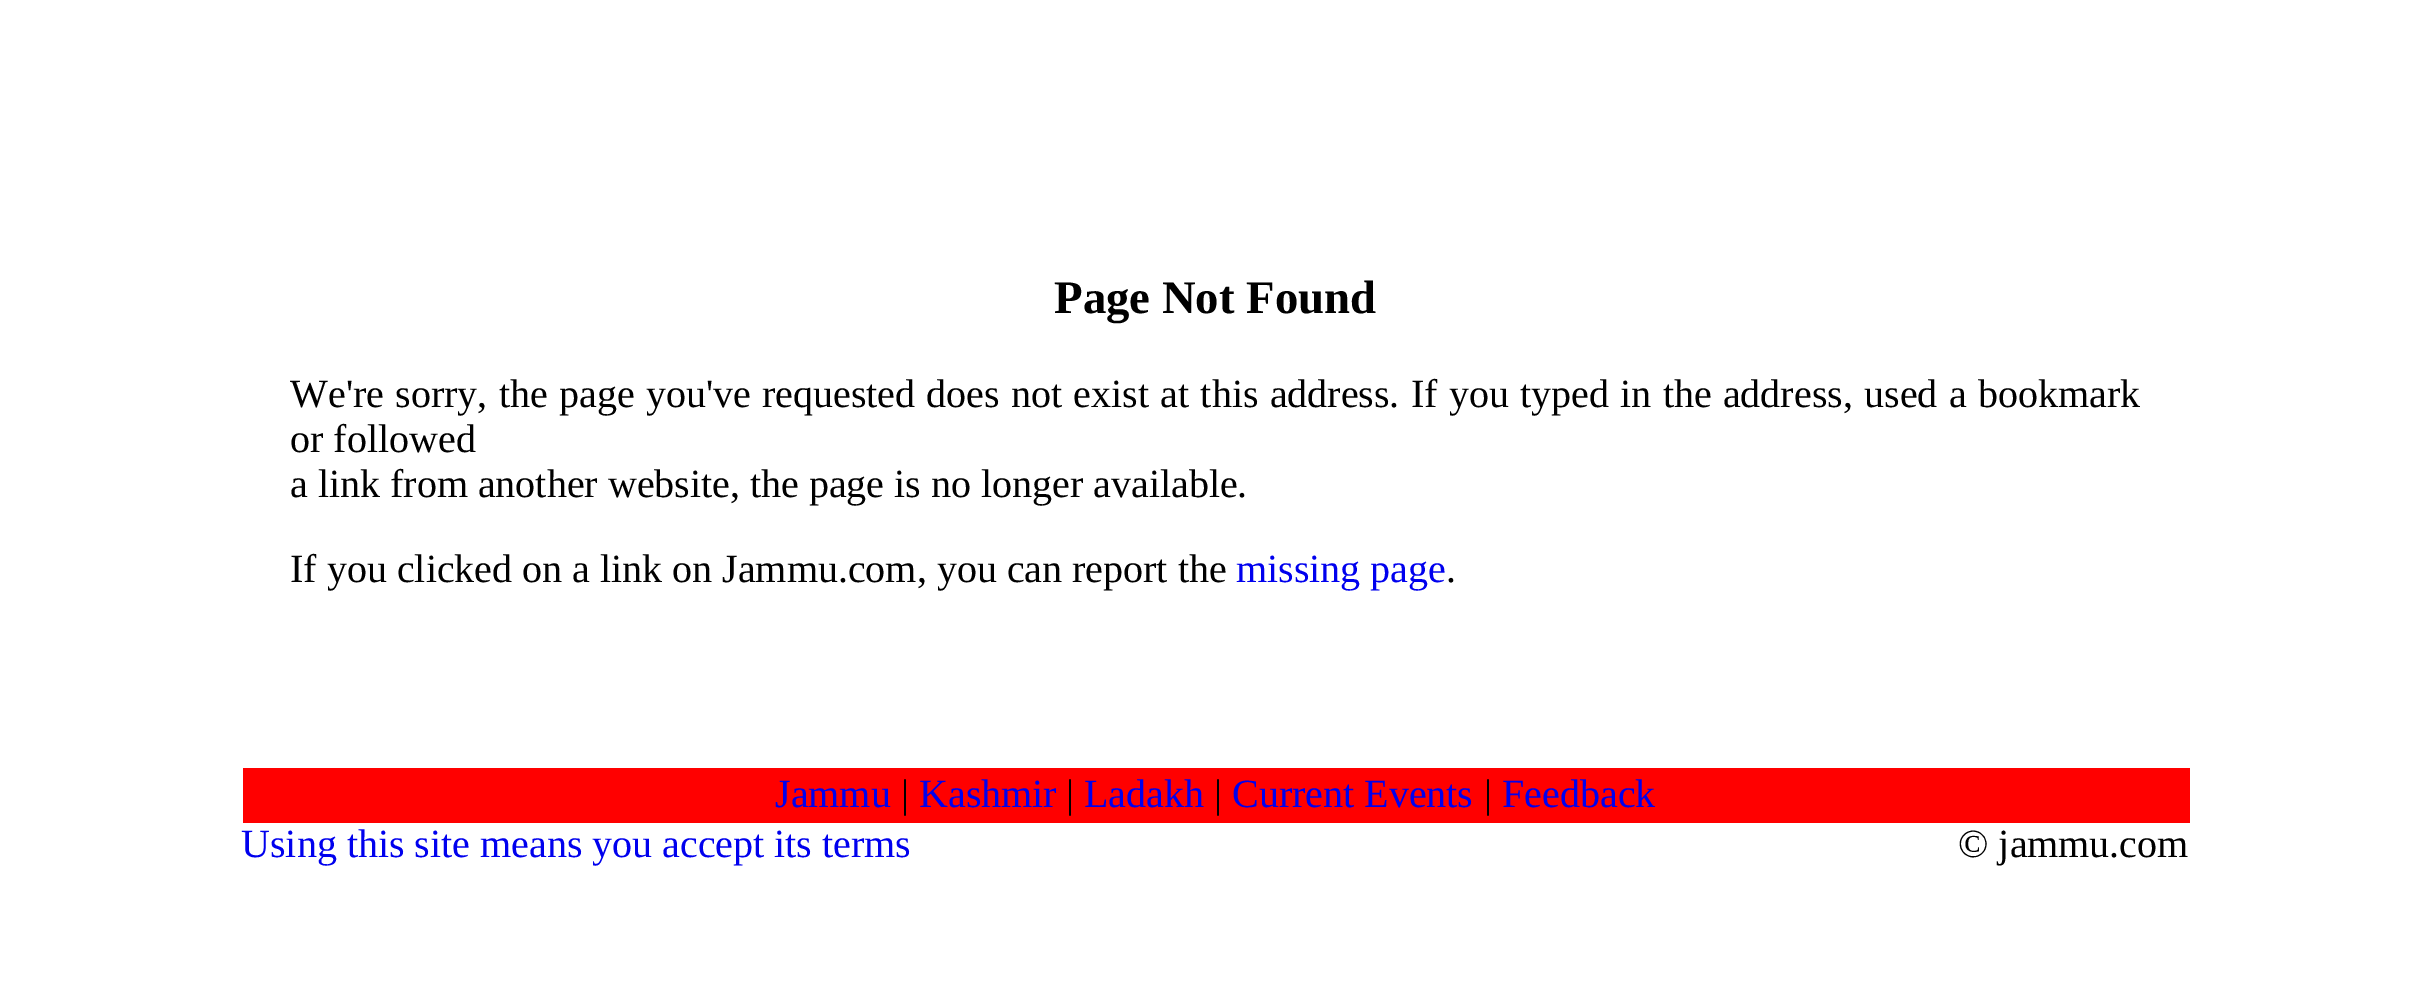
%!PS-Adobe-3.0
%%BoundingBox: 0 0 2429 1003
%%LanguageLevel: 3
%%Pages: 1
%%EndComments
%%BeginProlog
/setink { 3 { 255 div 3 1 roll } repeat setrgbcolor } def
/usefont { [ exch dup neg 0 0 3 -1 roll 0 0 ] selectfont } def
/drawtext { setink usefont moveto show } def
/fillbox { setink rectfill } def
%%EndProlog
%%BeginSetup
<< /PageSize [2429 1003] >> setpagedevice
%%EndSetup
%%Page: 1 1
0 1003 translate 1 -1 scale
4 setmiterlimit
0 0 2429 1003 255 255 255 fillbox
(Page Not Found) 1054 313 /LiberationSerif-Bold 46.75 0 0 0 drawtext
/LiberationSerif-Regular 40 usefont
290 407 moveto 1.3 0 32 (We're sorry, the page you've requested does not exist at this address. If you typed in the address, used a bookmark) widthshow
(or followed) 290 452 /LiberationSerif-Regular 40 0 0 0 drawtext
(a link from another website, the page is no longer available.) 290 497 /LiberationSerif-Regular 40 0 0 0 drawtext
(If you clicked on a link on Jammu.com, you can report the) 290 582 /LiberationSerif-Regular 40 0 0 0 drawtext
(missing page) 1236 582 /LiberationSerif-Regular 40 0 0 238 drawtext
(.) 1446 582 /LiberationSerif-Regular 40 0 0 0 drawtext
243 768 1947 55 255 0 0 fillbox
(Jammu) 775 807 /LiberationSerif-Regular 40 0 0 238 drawtext
(|) 901 807 /LiberationSerif-Regular 40 0 0 0 drawtext
(Kashmir) 919 807 /LiberationSerif-Regular 40 0 0 238 drawtext
(|) 1066 807 /LiberationSerif-Regular 40 0 0 0 drawtext
(Ladakh) 1084 807 /LiberationSerif-Regular 40 0 0 238 drawtext
(|) 1214 807 /LiberationSerif-Regular 40 0 0 0 drawtext
(Current Events) 1232 807 /LiberationSerif-Regular 40 0 0 238 drawtext
(|) 1484 807 /LiberationSerif-Regular 40 0 0 0 drawtext
(Feedback) 1502 807 /LiberationSerif-Regular 40 0 0 238 drawtext
(Using this site means you accept its terms) 241 857 /LiberationSerif-Regular 40 0 0 238 drawtext
(© jammu.com) 1958 857 /LiberationSerif-Regular 40 0 0 0 drawtext
showpage
%%EOF
